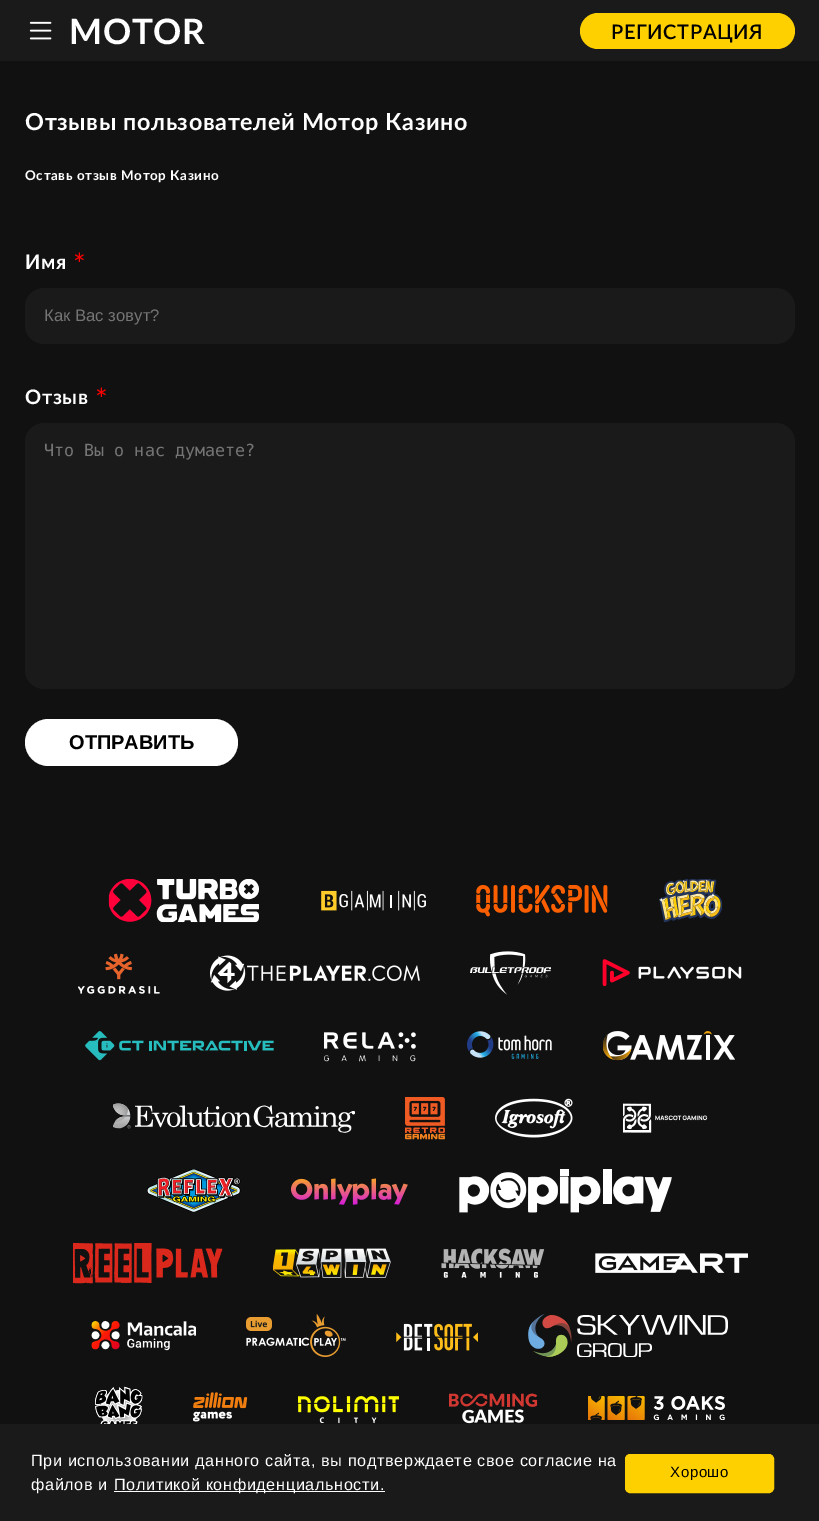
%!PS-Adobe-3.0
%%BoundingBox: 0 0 819 1521
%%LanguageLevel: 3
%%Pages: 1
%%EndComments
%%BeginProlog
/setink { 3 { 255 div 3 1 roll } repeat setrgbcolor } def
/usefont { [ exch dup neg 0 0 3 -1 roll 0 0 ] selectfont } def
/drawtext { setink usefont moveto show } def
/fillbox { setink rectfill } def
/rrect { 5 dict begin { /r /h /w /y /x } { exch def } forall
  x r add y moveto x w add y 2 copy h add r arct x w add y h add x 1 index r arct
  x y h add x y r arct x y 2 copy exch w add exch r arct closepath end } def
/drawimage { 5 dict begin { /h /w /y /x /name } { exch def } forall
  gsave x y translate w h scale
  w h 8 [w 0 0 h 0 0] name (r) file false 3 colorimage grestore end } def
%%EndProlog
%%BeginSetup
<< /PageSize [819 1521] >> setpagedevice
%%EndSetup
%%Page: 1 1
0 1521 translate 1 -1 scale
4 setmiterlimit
0 0 819 1521 17 17 17 fillbox
0 0 819 61 26 26 26 fillbox
(assets/img1.rgb) 29 21 23 19 drawimage
/Lato-Bold 35 usefont
255 255 255 setink
69 44 moveto 0.62 0 (MOTOR) ashow
254 208 0 setink
580 13 215 36 18 rrect fill
/Lato-SemiBold 20 usefont
0 0 0 setink
611 39 moveto 0.62 0 (РЕГИСТРАЦИЯ) ashow
/Lato-Bold 23.4 usefont
255 255 255 setink
25 130 moveto 0.62 0 (Отзывы пользователей Мотор Казино) ashow
/Lato-Bold 13.4 usefont
25 180 moveto 0.62 0 (Оставь отзыв Мотор Казино) ashow
/Lato-Bold 20 usefont
25 269 moveto 0.62 0 (Имя) ashow
/Lato-Regular 30 usefont
255 0 0 setink
73 275 moveto 0.62 0 (*) ashow
26 26 26 setink
25 288 770 56 19 rrect fill
(Как Вас зовут?) 44 321 /LiberationSans-Regular 16.7 117 117 117 drawtext
/Lato-Bold 20 usefont
255 255 255 setink
25 404 moveto 0.62 0 (Отзыв) ashow
/Lato-Regular 30 usefont
255 0 0 setink
95 410 moveto 0.62 0 (*) ashow
26 26 26 setink
25 423 770 266 19 rrect fill
(Что Вы о нас думаете?) 44 456 /DejaVuSansMono-Regular 16.7 117 117 117 drawtext
255 255 255 setink
25 719 213 47 23.5 rrect fill
(ОТПРАВИТЬ) 69 749 /LiberationSans-Bold 20 0 0 0 drawtext
(assets/img2.rgb) 108 879 151 44 drawimage
(assets/img3.rgb) 321 890 105 21 drawimage
(assets/img4.rgb) 476 884 132 33 drawimage
(assets/img5.rgb) 659 879 64 44 drawimage
(assets/img6.rgb) 78 953 82 41 drawimage
(assets/img7.rgb) 210 955 210 36 drawimage
(assets/img8.rgb) 470 951 81 44 drawimage
(assets/img9.rgb) 602 959 140 28 drawimage
(assets/img10.rgb) 85 1031 189 30 drawimage
(assets/img11.rgb) 324 1032 92 30 drawimage
(assets/img12.rgb) 467 1031 85 28 drawimage
(assets/img13.rgb) 603 1031 132 30 drawimage
(assets/img14.rgb) 113 1103 242 30 drawimage
(assets/img15.rgb) 405 1097 40 43 drawimage
(assets/img16.rgb) 495 1098 78 40 drawimage
(assets/img17.rgb) 623 1103 85 30 drawimage
(assets/img18.rgb) 147 1169 94 44 drawimage
(assets/img19.rgb) 291 1178 117 27 drawimage
(assets/img20.rgb) 459 1169 213 44 drawimage
(assets/img21.rgb) 73 1243 150 41 drawimage
(assets/img22.rgb) 273 1248 118 30 drawimage
(assets/img23.rgb) 441 1248 104 30 drawimage
(assets/img24.rgb) 595 1253 153 20 drawimage
(assets/img25.rgb) 91 1321 105 30 drawimage
(assets/img26.rgb) 246 1314 100 43 drawimage
(assets/img27.rgb) 396 1323 82 28 drawimage
(assets/img28.rgb) 528 1314 200 44 drawimage
(assets/img29.rgb) 95 1386 48 38 drawimage
(assets/img30.rgb) 193 1392 55 30 drawimage
(assets/img31.rgb) 298 1396 101 28 drawimage
(assets/img32.rgb) 449 1393 89 31 drawimage
(assets/img33.rgb) 588 1396 137 24 drawimage
0 1424 819 97 26 26 26 fillbox
/LiberationSans-Regular 16.25 usefont
255 255 255 setink
31 1466 moveto 0.62 0 (При использовании данного сайта, вы подтверждаете свое согласие на) ashow
31 1490 moveto 0.62 0 (файлов и) ashow
114 1491 271 1 255 255 255 fillbox
114 1490 moveto 0.62 0 (Политикой конфиденциальности.) ashow
254 208 0 setink
625.5 1454.5 148 38 4.5 rrect gsave fill grestore
stroke
/LiberationSans-Regular 15 usefont
0 0 0 setink
670 1477 moveto 0.62 0 (Хорошо) ashow
showpage
%%EOF
